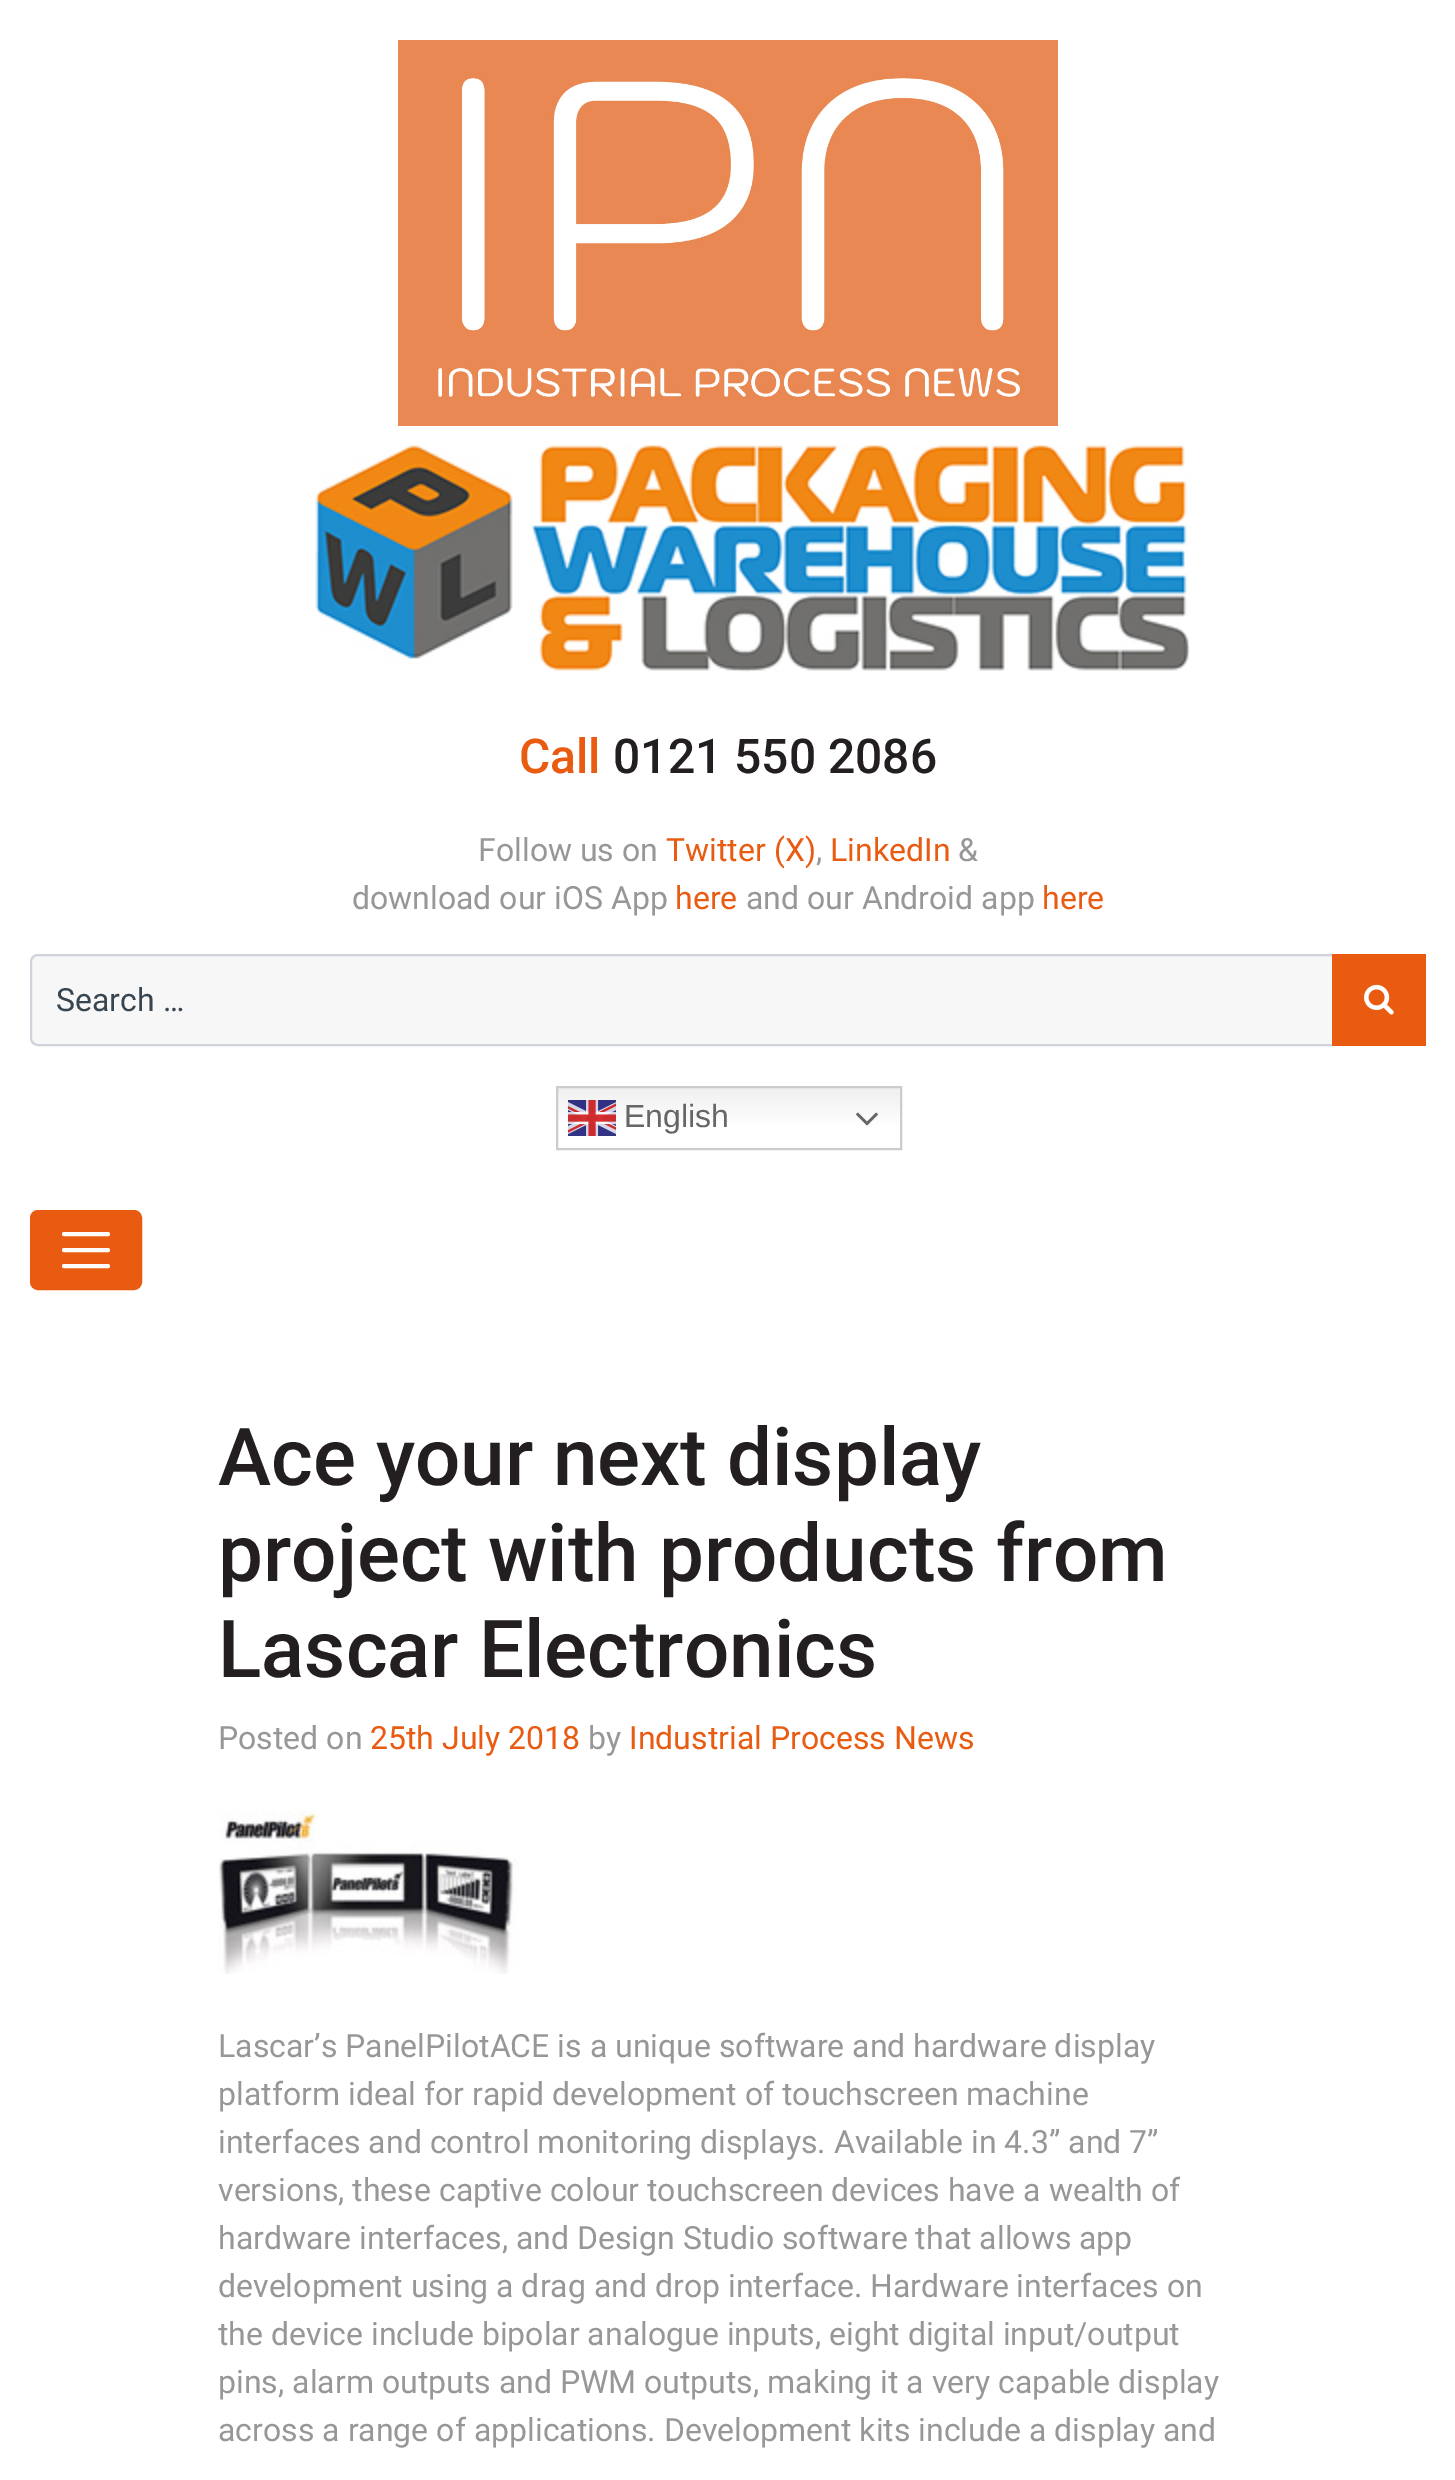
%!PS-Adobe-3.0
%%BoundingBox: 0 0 1455 2480
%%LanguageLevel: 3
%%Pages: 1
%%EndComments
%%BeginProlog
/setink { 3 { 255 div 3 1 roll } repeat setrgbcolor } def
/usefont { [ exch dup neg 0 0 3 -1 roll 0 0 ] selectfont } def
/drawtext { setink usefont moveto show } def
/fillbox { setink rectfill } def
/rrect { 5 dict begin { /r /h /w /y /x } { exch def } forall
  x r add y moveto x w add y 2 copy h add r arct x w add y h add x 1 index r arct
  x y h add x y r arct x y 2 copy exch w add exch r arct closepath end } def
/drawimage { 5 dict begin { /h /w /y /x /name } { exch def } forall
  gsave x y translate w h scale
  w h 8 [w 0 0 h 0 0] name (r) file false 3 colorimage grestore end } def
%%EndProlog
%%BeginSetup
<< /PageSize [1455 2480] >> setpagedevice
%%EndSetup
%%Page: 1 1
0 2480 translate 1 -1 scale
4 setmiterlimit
0 0 1455 2480 255 255 255 fillbox
(assets/img1.rgb) 398 40 660 386 drawimage
(assets/img2.rgb) 315 445 875 227 drawimage
(Call) 519 773 /Roboto-Medium 48 233 91 16 drawtext
(0121 550 2086) 613 773 /Roboto-Medium 48 35 31 32 drawtext
(Follow us on) 478 861 /Roboto-Regular 32 152 150 150 drawtext
(Twitter \(X\)) 666 861 /Roboto-Regular 32 233 91 16 drawtext
(,) 816 861 /Roboto-Regular 32 152 150 150 drawtext
(LinkedIn) 830 861 /Roboto-Regular 32 233 91 16 drawtext
(&) 958 861 /Roboto-Regular 32 152 150 150 drawtext
(download our iOS App) 352 909 /Roboto-Regular 32 152 150 150 drawtext
(here) 675 909 /Roboto-Regular 32 233 91 16 drawtext
(and our Android app) 746 909 /Roboto-Regular 32 152 150 150 drawtext
(here) 1042 909 /Roboto-Regular 32 233 91 16 drawtext
247 247 247 setink
38 955 moveto 1333 955 lineto 1333 1045 lineto 38 1045 lineto 34 1045 31 1042 31 1038 curveto 31 962 lineto 31 958 34 955 38 955 curveto closepath gsave fill grestore
206 212 218 setink
2 setlinewidth
stroke
(Search …) 56 1011 /Roboto-Regular 32 55 69 80 drawtext
1332 954 94 92 233 91 16 fillbox
(assets/img3.rgb) 1364 984 30 31 drawimage
gsave 558 1088 moveto 900 1088 lineto 900 1124 lineto 558 1124 lineto closepath clip newpath
<< /ShadingType 2 /ColorSpace /DeviceRGB /Coords [729 1086 729 1150] /Extend [true true] /Function << /FunctionType 3 /Domain [0 1] /Functions [<< /FunctionType 2 /Domain [0 1] /C0 [0.937 0.937 0.937] /C1 [1 1 1] /N 1 >> << /FunctionType 2 /Domain [0 1] /C0 [1 1 1] /C1 [1 1 1] /N 1 >>] /Bounds [0.7] /Encode [0 1 0 1] >> >> shfill grestore
204 204 204 setink
557 1087 344 62 rectstroke
(assets/img4.rgb) 568 1100 48 36 drawimage
(English) 624 1127 /LiberationSans-Regular 32 102 102 102 drawtext
(assets/img5.rgb) 856 1112 22 14 drawimage
233 91 16 setink
31 1211 110 78 7 rrect gsave fill grestore
stroke
255 255 255 setink
4 setlinewidth
1 setlinecap
64 1234 moveto 108 1234 lineto 64 1250 moveto 108 1250 lineto 64 1266 moveto 108 1266 lineto stroke
(Ace your next display) 218 1485 /Roboto-Medium 80 35 31 32 drawtext
(project with products from) 218 1581 /Roboto-Medium 80 35 31 32 drawtext
(Lascar Electronics) 218 1677 /Roboto-Medium 80 35 31 32 drawtext
(Posted on) 218 1749 /Roboto-Regular 32 152 150 150 drawtext
(25th July 2018) 370 1749 /Roboto-Regular 32 233 91 16 drawtext
(by) 588 1749 /Roboto-Regular 32 152 150 150 drawtext
(Industrial Process News) 629 1749 /Roboto-Regular 32 233 91 16 drawtext
(assets/img6.rgb) 218 1810 300 164 drawimage
(Lascar’s PanelPilotACE is a unique software and hardware display) 218 2057 /Roboto-Regular 32 152 150 150 drawtext
(platform ideal for rapid development of touchscreen machine) 218 2105 /Roboto-Regular 32 152 150 150 drawtext
(interfaces and control monitoring displays. Available in 4.3” and 7”) 218 2153 /Roboto-Regular 32 152 150 150 drawtext
(versions, these captive colour touchscreen devices have a wealth of) 218 2201 /Roboto-Regular 32 152 150 150 drawtext
(hardware interfaces, and Design Studio software that allows app) 218 2249 /Roboto-Regular 32 152 150 150 drawtext
(development using a drag and drop interface. Hardware interfaces on) 218 2297 /Roboto-Regular 32 152 150 150 drawtext
(the device include bipolar analogue inputs, eight digital input/output) 218 2345 /Roboto-Regular 32 152 150 150 drawtext
(pins, alarm outputs and PWM outputs, making it a very capable display) 218 2393 /Roboto-Regular 32 152 150 150 drawtext
(across a range of applications. Development kits include a display and) 218 2441 /Roboto-Regular 32 152 150 150 drawtext
showpage
%%EOF
